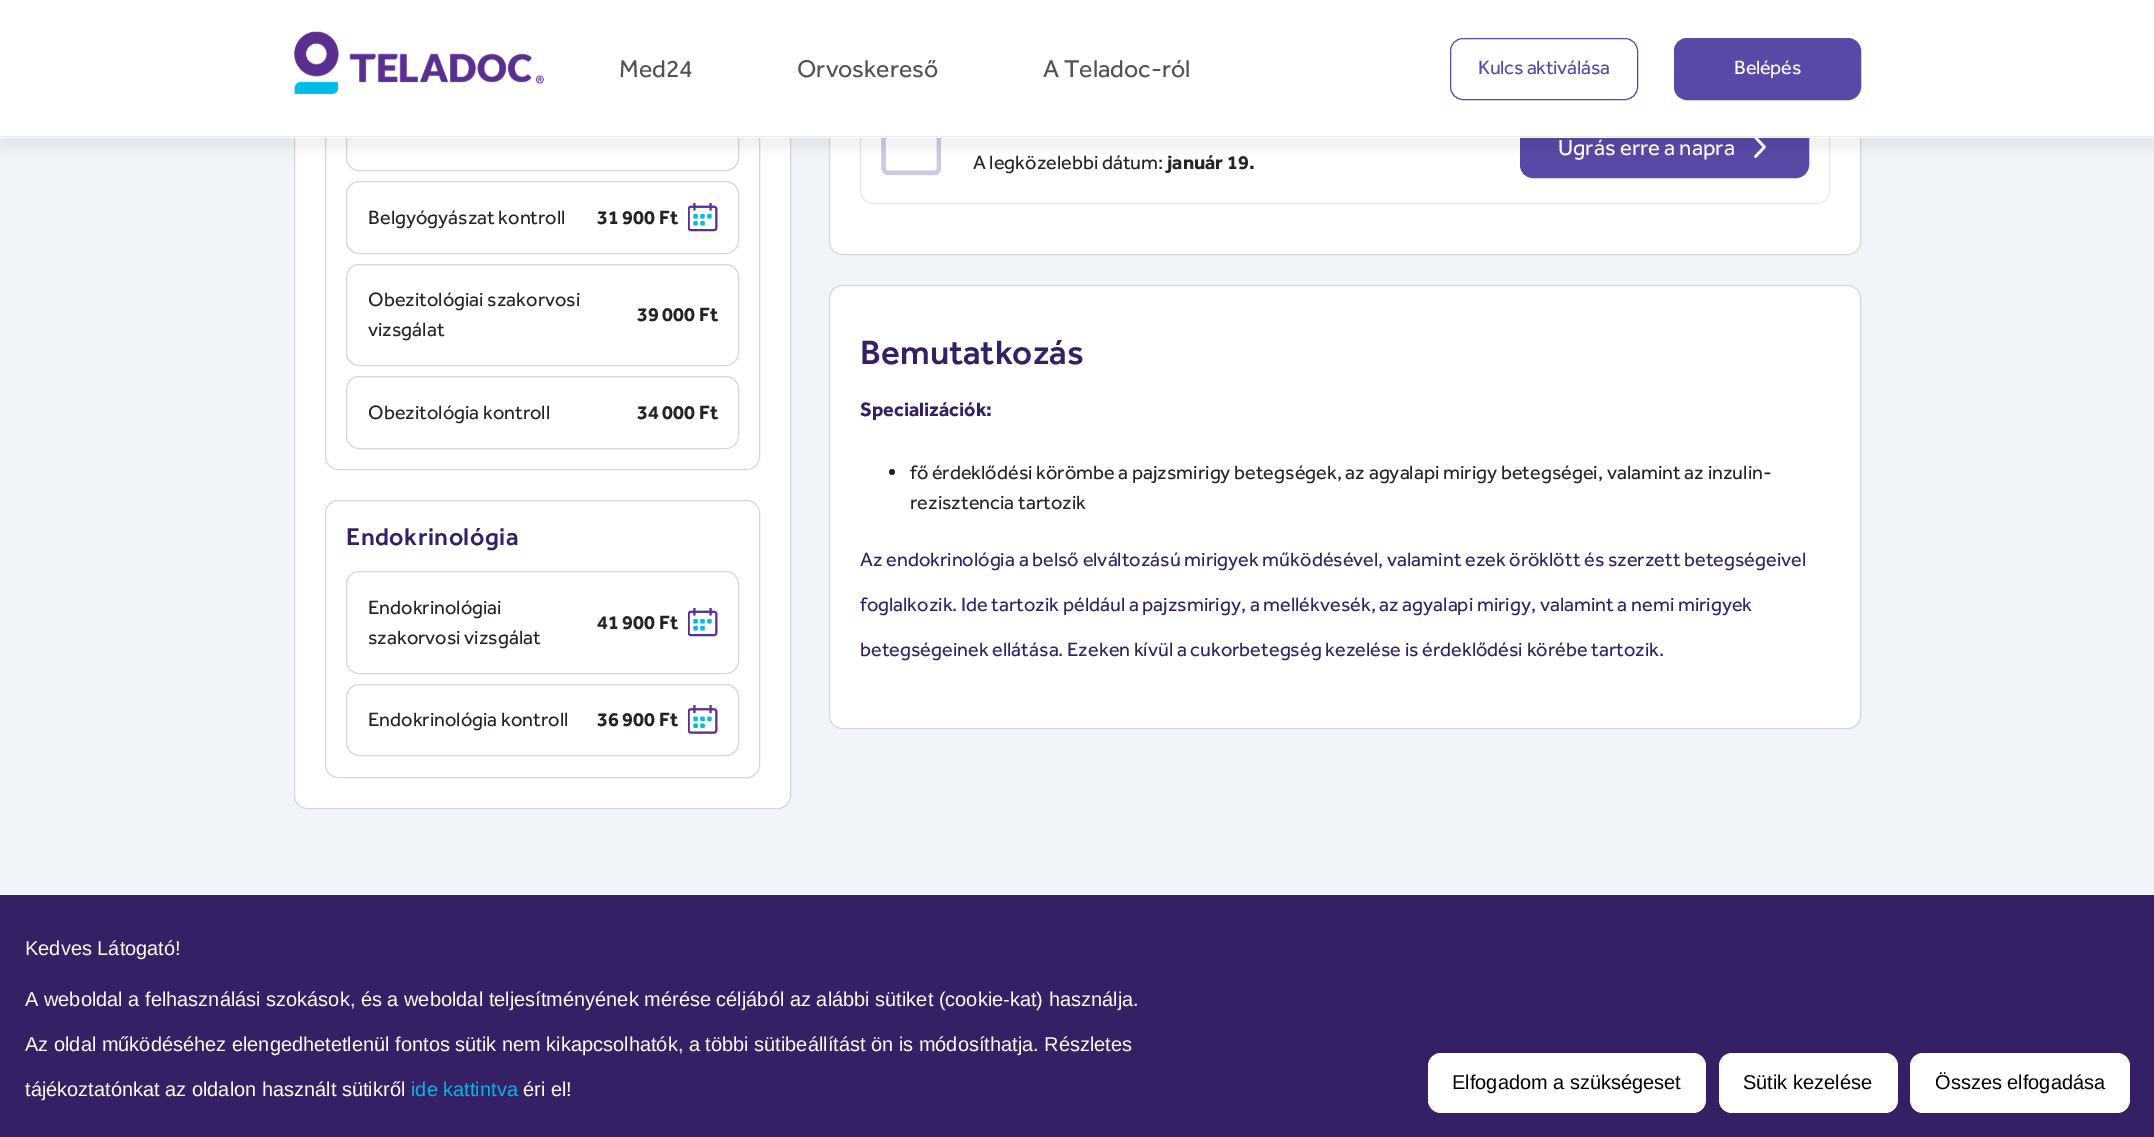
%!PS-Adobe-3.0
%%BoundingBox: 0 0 2154 1137
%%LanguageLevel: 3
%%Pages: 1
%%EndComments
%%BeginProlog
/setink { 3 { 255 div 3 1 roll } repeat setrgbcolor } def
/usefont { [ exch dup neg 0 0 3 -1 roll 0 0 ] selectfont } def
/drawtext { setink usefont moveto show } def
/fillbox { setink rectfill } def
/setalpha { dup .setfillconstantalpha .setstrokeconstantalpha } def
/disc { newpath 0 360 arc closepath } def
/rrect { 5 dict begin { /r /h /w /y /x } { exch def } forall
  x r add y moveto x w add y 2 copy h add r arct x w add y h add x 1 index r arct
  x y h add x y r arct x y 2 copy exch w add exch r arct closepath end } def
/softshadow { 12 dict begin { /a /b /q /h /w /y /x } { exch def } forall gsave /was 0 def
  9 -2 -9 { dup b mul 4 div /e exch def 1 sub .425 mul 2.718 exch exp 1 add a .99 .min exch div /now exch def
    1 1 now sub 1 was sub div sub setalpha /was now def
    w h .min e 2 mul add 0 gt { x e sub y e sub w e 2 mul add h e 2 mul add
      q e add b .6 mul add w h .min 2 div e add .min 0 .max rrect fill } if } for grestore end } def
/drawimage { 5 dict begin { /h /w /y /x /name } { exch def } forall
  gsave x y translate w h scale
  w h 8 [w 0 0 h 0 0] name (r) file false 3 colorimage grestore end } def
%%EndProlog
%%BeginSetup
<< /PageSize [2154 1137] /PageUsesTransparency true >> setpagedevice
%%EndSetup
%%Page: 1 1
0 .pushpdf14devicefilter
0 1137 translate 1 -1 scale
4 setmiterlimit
0 0 2154 1137 241 244 248 fillbox
255 255 255 setink
294.5 -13.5 496 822 12.5 rrect gsave fill grestore
212 216 220 setink
stroke
325.5 -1.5 434 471 12.5 rrect stroke
346.5 69.5 392 101 12.5 rrect stroke
255 255 255 setink
829.5 -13.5 1031 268 12.5 rrect gsave fill grestore
212 216 220 setink
stroke
232 232 232 setink
860.5 34.5 969 169 12.5 rrect stroke
89 73 167 setink
1520.5 118.5 288 59 12.5 rrect gsave fill grestore
stroke
255 255 255 setink
2.6 setlinewidth
1 setlinecap
1 setlinejoin
1755.5 137.5 moveto 1764 146.5 lineto 1764.5 146.5 1764.5 147 1764 147.5 curveto 1755.5 156.5 lineto stroke
0 0 2154 138 255 255 255 fillbox
(assets/img4.rgb) 881 138 60 38 drawimage
gsave
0 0 moveto 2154 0 lineto 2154 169 lineto 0 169 lineto closepath 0 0 moveto 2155 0 lineto 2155 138 lineto 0 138 lineto closepath eoclip newpath
0 0 0 setink
0 13 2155 137 0 6 0.05 softshadow
grestore
0 136 2154 1 235 233 240 fillbox
(assets/img1.rgb) 294 31 250 63 drawimage
(Med24) 619 77 /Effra-Regular 25 82 82 82 drawtext
(Orvoskereső) 797 77 /Effra-Regular 25 82 82 82 drawtext
(A Teladoc-ról) 1043 77 /Effra-Regular 25 82 82 82 drawtext
89 73 167 setink
1 setlinewidth
0 setlinecap
0 setlinejoin
1450.5 38.5 187 61 12.5 rrect stroke
/Effra-Regular 20 usefont
1478 74 moveto -0.25 0 (Kulcs aktiválása) ashow
1674.5 38.5 186 61 12.5 rrect gsave fill grestore
stroke
255 255 255 setink
1734 74 moveto -0.25 0 (Belépés) ashow
212 216 220 setink
346.5 181.5 392 72 12.5 rrect stroke
(Belgyógyászat kontroll) 368 224 /Effra-Regular 20 33 37 41 drawtext
(31 900 Ft) 597 224 /Effra-Bold 20 33 37 41 drawtext
(assets/img2.rgb) 688 203 30 29 drawimage
212 216 220 setink
346.5 264.5 392 101 12.5 rrect stroke
(Obezitológiai szakorvosi) 368 306 /Effra-Regular 20 33 37 41 drawtext
(vizsgálat) 368 336 /Effra-Regular 20 33 37 41 drawtext
(39 000 Ft) 637 321 /Effra-Bold 20 33 37 41 drawtext
212 216 220 setink
346.5 376.5 392 72 12.5 rrect stroke
(Obezitológia kontroll) 368 419 /Effra-Regular 20 33 37 41 drawtext
(34 000 Ft) 637 419 /Effra-Bold 20 33 37 41 drawtext
212 216 220 setink
325.5 500.5 434 277 12.5 rrect stroke
/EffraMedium-Medium 25 usefont
53 31 101 setink
346 545 moveto 0.5 0 (Endokrinológia) ashow
212 216 220 setink
346.5 571.5 392 102 12.5 rrect stroke
(Endokrinológiai) 368 614 /Effra-Regular 20 33 37 41 drawtext
(szakorvosi vizsgálat) 368 644 /Effra-Regular 20 33 37 41 drawtext
(41 900 Ft) 597 629 /Effra-Bold 20 33 37 41 drawtext
(assets/img2.rgb) 688 608 30 29 drawimage
212 216 220 setink
346.5 684.5 392 71 12.5 rrect stroke
(Endokrinológia kontroll) 368 726 /Effra-Regular 20 33 37 41 drawtext
(36 900 Ft) 597 726 /Effra-Bold 20 33 37 41 drawtext
(assets/img3.rgb) 688 705 30 29 drawimage
(Ugrás erre a napra) 1558 155 /Effra-Regular 22.5 255 255 255 drawtext
(A legközelebbi dátum:) 973 169 /Effra-Regular 20 33 37 41 drawtext
(január 19.) 1167 169 /Effra-Bold 20 33 37 41 drawtext
255 255 255 setink
829.5 285.5 1031 443 12.5 rrect gsave fill grestore
212 216 220 setink
stroke
(Bemutatkozás) 860 364 /EffraMedium-Medium 35 53 31 101 drawtext
(Specializációk:) 860 416 /Effra-Bold 20 53 31 101 drawtext
33 37 41 setink
892 472 3 disc fill
(fő érdeklődési körömbe a pajzsmirigy betegségek, az agyalapi mirigy betegségei, valamint az inzulin-) 910 479 /Effra-Regular 20 33 37 41 drawtext
(rezisztencia tartozik) 910 509 /Effra-Regular 20 33 37 41 drawtext
(Az endokrinológia a belső elváltozású mirigyek működésével, valamint ezek öröklött és szerzett betegségeivel) 860 566 /Effra-Regular 20 53 31 101 drawtext
(foglalkozik. Ide tartozik például a pajzsmirigy, a mellékvesék, az agyalapi mirigy, valamint a nemi mirigyek) 860 611 /Effra-Regular 20 53 31 101 drawtext
(betegségeinek ellátása. Ezeken kívül a cukorbetegség kezelése is érdeklődési körébe tartozik.) 860 656 /Effra-Regular 20 53 31 101 drawtext
0 895 2154 242 53 31 101 fillbox
(Kedves Látogató!) 25 955 /LiberationSans-Regular 20 255 255 255 drawtext
(A weboldal a felhasználási szokások, és a weboldal teljesítményének mérése céljából az alábbi sütiket \(cookie-kat\) használja.) 25 1006 /LiberationSans-Regular 20 255 255 255 drawtext
(Az oldal működéséhez elengedhetetlenül fontos sütik nem kikapcsolhatók, a többi sütibeállítást ön is módosíthatja. Részletes) 25 1051 /LiberationSans-Regular 20 255 255 255 drawtext
(tájékoztatónkat az oldalon használt sütikről) 25 1096 /LiberationSans-Regular 20 255 255 255 drawtext
(ide kattintva) 411 1096 /LiberationSans-Regular 20 0 181 226 drawtext
(éri el!) 523 1096 /LiberationSans-Regular 20 255 255 255 drawtext
1428 1053 278 60 13 rrect fill
(Elfogadom a szükségeset) 1452 1089 /LiberationSans-Regular 20 0 0 0 drawtext
255 255 255 setink
1719 1053 179 60 13 rrect fill
(Sütik kezelése) 1743 1089 /LiberationSans-Regular 20 0 0 0 drawtext
255 255 255 setink
1910 1053 220 60 13 rrect fill
(Összes elfogadása) 1935 1089 /LiberationSans-Regular 20 0 0 0 drawtext
.poppdf14devicefilter showpage
%%EOF
